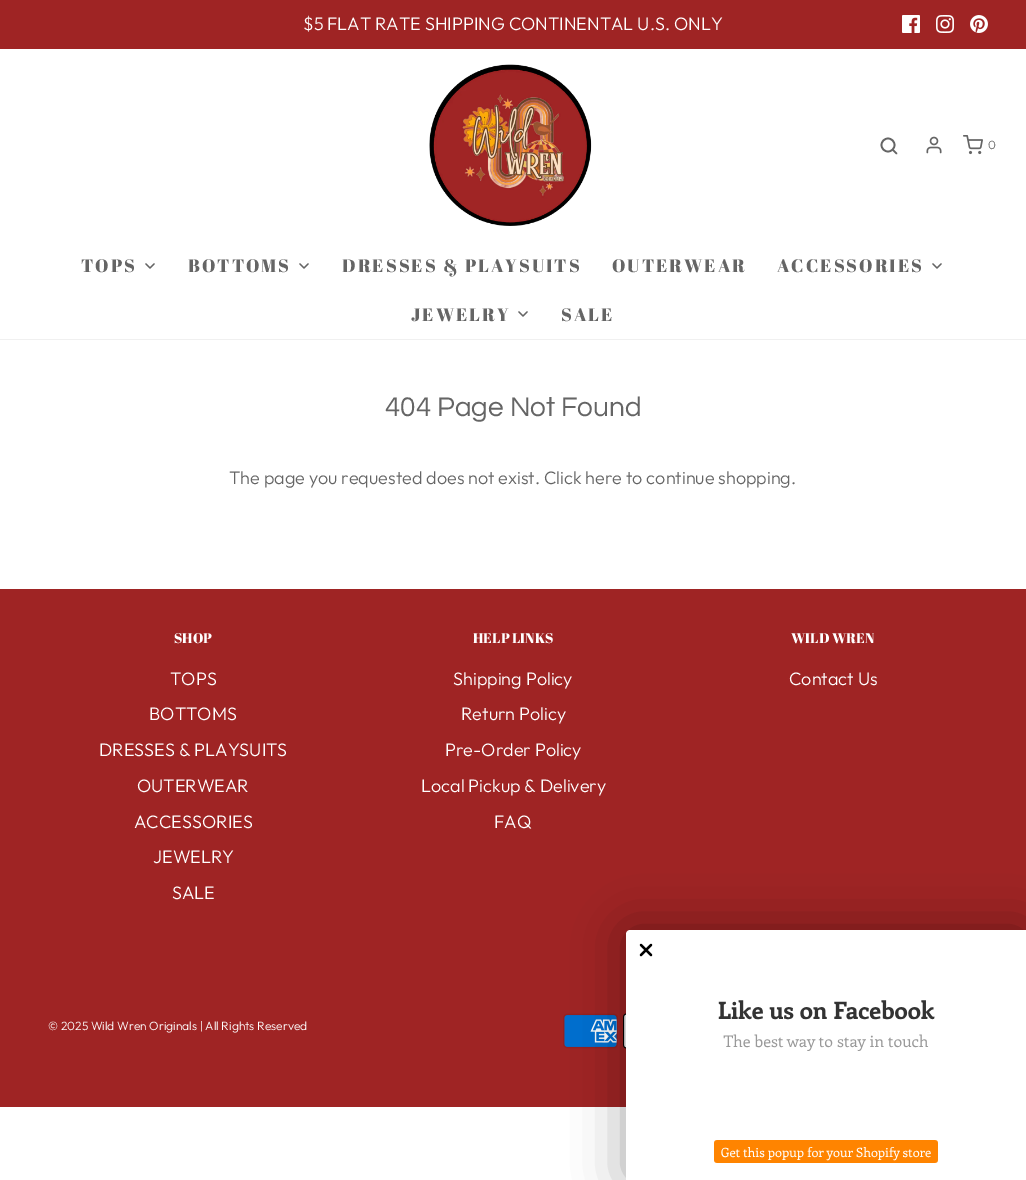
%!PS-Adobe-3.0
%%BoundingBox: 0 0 1026 1180
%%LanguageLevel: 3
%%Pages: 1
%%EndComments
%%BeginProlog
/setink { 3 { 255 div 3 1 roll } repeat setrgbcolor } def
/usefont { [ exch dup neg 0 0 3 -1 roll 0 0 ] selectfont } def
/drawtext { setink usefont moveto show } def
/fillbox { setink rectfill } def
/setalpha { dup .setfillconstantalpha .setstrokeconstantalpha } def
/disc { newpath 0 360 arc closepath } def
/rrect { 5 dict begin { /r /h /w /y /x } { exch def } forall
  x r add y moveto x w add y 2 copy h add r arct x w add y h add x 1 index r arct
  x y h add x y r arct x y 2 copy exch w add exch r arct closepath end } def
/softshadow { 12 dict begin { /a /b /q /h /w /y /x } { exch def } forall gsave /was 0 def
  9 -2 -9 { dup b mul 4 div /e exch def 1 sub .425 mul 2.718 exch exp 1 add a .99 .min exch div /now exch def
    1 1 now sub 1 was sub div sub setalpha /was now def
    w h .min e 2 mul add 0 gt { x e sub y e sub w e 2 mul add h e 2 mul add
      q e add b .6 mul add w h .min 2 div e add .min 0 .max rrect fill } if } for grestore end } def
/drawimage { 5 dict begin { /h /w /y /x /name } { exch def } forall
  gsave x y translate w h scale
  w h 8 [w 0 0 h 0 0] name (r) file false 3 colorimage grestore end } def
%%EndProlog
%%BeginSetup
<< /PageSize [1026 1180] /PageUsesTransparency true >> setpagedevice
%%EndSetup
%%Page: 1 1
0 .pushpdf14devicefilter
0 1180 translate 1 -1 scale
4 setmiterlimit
0 0 1026 1180 255 255 255 fillbox
0 0 1026 49 159 36 36 fillbox
($5 FLAT RATE SHIPPING CONTINENTAL U.S. ONLY) 303 30 /Outfit-Light 18 255 255 255 drawtext
(assets/img1.rgb) 902 15 18 18 drawimage
(assets/img2.rgb) 936 15 18 18 drawimage
(assets/img3.rgb) 970 15 18 18 drawimage
0 339 1026 1 240 240 240 fillbox
(assets/img4.rgb) 429 64 163 162 drawimage
101 101 101 setink
1.7 setlinewidth
888 145 6.5 disc stroke
1 setlinecap
1 setlinejoin
896.5 153.5 moveto 893 150 lineto stroke
(assets/img5.rgb) 926 136 16 18 drawimage
(assets/img6.rgb) 963 135 20 20 drawimage
(0) 988 149 /Outfit-Light 12 101 101 101 drawtext
/AbrilFatface-Regular 18 usefont
81 272 moveto 2 0 (TOPS) ashow
1.3 setlinewidth
146 264 moveto 150 268 lineto 154 264 lineto stroke
188 272 moveto 2 0 (BOTTOMS) ashow
300 264 moveto 304 268 lineto 308 264 lineto stroke
342 272 moveto 2 0 (DRESSES & PLAYSUITS) ashow
612 272 moveto 2 0 (OUTERWEAR) ashow
777 272 moveto 2 0 (ACCESSORIES) ashow
933 264 moveto 937 268 lineto 941 264 lineto stroke
411 321 moveto 2 0 (JEWELRY) ashow
519 312 moveto 523 316 lineto 527 312 lineto stroke
561 321 moveto 2 0 (SALE) ashow
(404 Page Not Found) 385 416 /Questrial-Regular 28 101 101 101 drawtext
(The page you requested does not exist. Click here to continue shopping.) 229 484 /Outfit-Light 18 101 101 101 drawtext
0 589 1026 518 159 36 36 fillbox
(SHOP) 174 643 /AbrilFatface-Regular 14 255 255 255 drawtext
(TOPS) 170 685 /Outfit-Light 18 255 255 255 drawtext
(BOTTOMS) 149 720 /Outfit-Light 18 255 255 255 drawtext
(DRESSES & PLAYSUITS) 99 756 /Outfit-Light 18 255 255 255 drawtext
(OUTERWEAR) 137 792 /Outfit-Light 18 255 255 255 drawtext
(ACCESSORIES) 134 828 /Outfit-Light 18 255 255 255 drawtext
(JEWELRY) 153 863 /Outfit-Light 18 255 255 255 drawtext
(SALE) 172 899 /Outfit-Light 18 255 255 255 drawtext
(HELP LINKS) 473 643 /AbrilFatface-Regular 14 255 255 255 drawtext
(Shipping Policy) 453 685 /Outfit-Light 18 255 255 255 drawtext
(Return Policy) 461 720 /Outfit-Light 18 255 255 255 drawtext
(Pre-Order Policy) 445 756 /Outfit-Light 18 255 255 255 drawtext
(Local Pickup & Delivery) 421 792 /Outfit-Light 18 255 255 255 drawtext
(FAQ) 494 828 /Outfit-Light 18 255 255 255 drawtext
(WILD WREN) 791 643 /AbrilFatface-Regular 14 255 255 255 drawtext
(Contact Us) 789 685 /Outfit-Light 18 255 255 255 drawtext
(© 2025 Wild Wren Originals | All Rights Reserved) 48 1030 /Outfit-Light 12 255 255 255 drawtext
(assets/img7.rgb) 563 1013 55 36 drawimage
(assets/img8.rgb) 623 1013 3 36 drawimage
0 0 0 setink
626 930 400 250 4 25 0.35 softshadow
255 255 255 setink
630 930 moveto 1026 930 lineto 1026 1180 lineto 626 1180 lineto 626 934 lineto 626 932 628 930 630 930 curveto closepath fill
(assets/img9.rgb) 639 943 299 220 drawimage
.poppdf14devicefilter showpage
%%EOF
